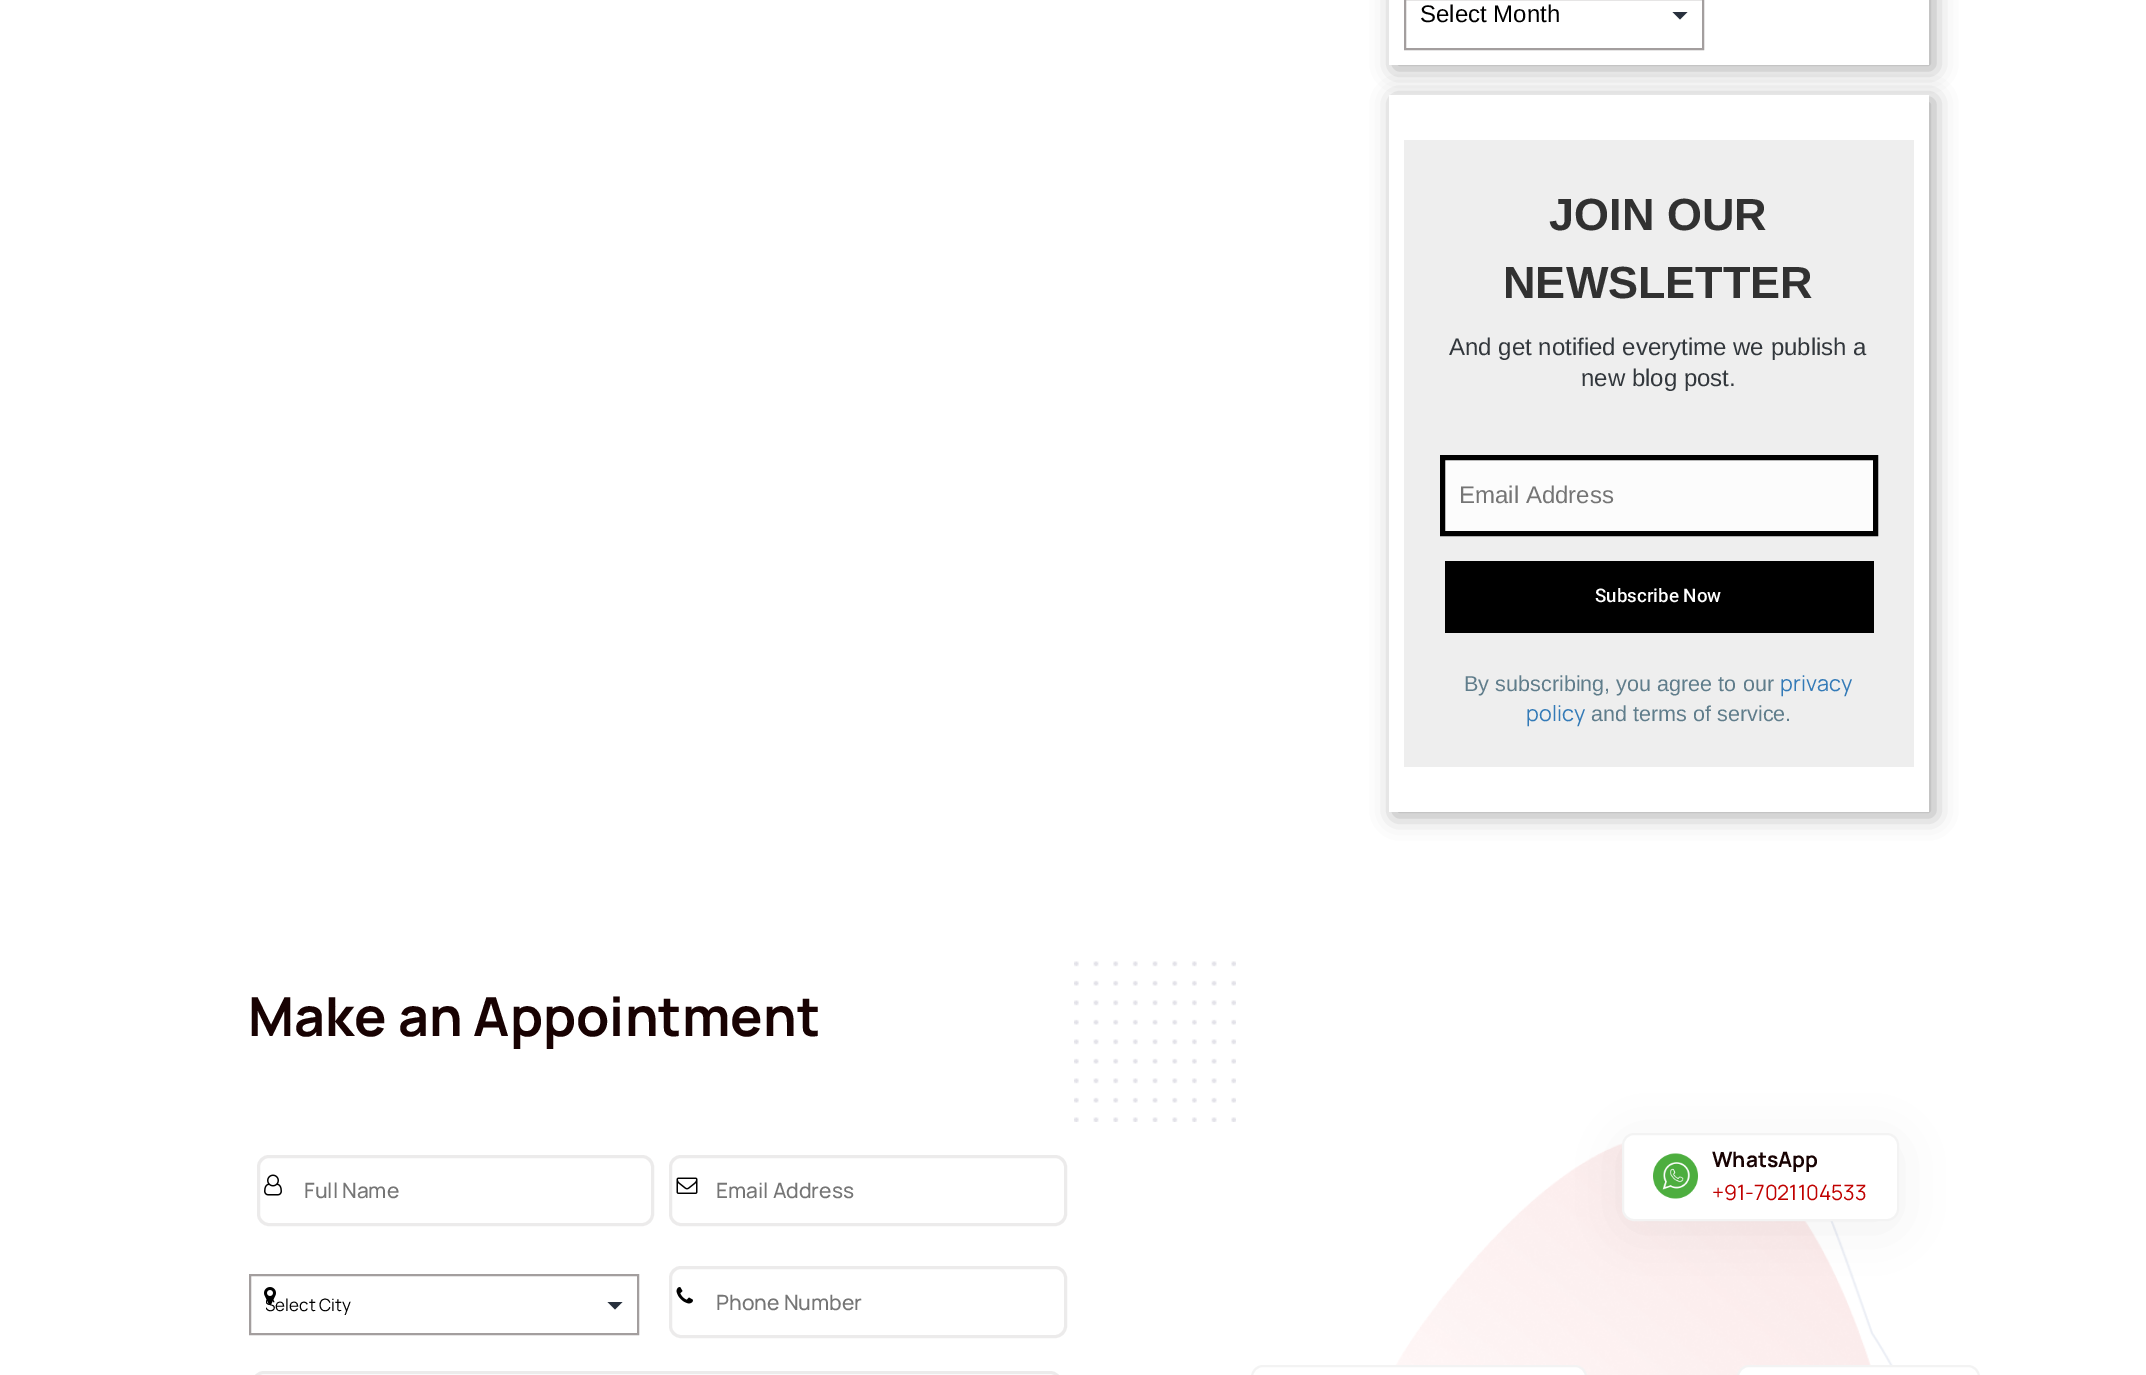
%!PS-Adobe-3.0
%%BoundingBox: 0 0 2146 1375
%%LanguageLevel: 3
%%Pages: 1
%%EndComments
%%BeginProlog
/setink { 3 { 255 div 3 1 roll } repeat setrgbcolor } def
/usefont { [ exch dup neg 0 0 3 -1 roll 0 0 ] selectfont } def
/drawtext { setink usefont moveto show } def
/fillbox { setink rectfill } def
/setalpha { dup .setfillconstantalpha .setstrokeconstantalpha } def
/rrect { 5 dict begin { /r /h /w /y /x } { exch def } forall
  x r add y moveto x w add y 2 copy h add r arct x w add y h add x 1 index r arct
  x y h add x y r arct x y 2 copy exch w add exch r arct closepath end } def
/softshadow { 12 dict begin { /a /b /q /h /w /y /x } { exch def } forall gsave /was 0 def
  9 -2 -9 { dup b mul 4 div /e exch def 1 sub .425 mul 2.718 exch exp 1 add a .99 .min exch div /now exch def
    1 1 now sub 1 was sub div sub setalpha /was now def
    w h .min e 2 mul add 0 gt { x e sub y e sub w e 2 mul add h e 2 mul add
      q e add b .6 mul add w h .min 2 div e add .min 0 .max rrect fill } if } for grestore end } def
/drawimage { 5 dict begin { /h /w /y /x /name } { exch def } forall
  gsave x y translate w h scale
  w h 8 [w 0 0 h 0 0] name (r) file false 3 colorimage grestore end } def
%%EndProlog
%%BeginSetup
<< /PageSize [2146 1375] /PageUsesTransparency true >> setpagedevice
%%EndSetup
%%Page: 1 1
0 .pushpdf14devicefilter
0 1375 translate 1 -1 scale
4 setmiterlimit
0 0 2146 1375 255 255 255 fillbox
0 0 0 setink
1394 -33 540 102 0 11 0.33 softshadow
1389 0 540 65 255 255 255 fillbox
40 48 61 setink
1672.5 12 moveto 1687.5 12 lineto 1680 19.5 lineto closepath fill
163 158 158 setink
2 setlinewidth
1405 -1 298 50 rectstroke
(Select Month) 1420 22 /LiberationSans-Regular 24 0 0 0 drawtext
1394 99 540 717 0 11 0.33 softshadow
1389 95 540 717 255 255 255 fillbox
1404 140 510 627 238 238 238 fillbox
(JOIN OUR) 1549 230 /LiberationSans-Bold 45 49 49 49 drawtext
(NEWSLETTER) 1503 298 /LiberationSans-Bold 45 49 49 49 drawtext
(And get notified everytime we publish a) 1449 355 /LiberationSans-Regular 24 50 55 60 drawtext
(new blog post.) 1581 386 /LiberationSans-Regular 24 50 55 60 drawtext
252 252 252 setink
1442.5 457.5 moveto 1875.5 457.5 lineto 1875.5 533.5 lineto 1442.5 533.5 lineto closepath gsave fill grestore
0 0 0 setink
5 setlinewidth
stroke
(Email Address) 1459 503 /LiberationSans-Regular 24 117 117 117 drawtext
1445 561 429 72 0 0 0 fillbox
(Subscribe Now) 1595 602 /Roboto-Medium 18.75 255 255 255 drawtext
(By subscribing, you agree to our) 1464 691 /LiberationSans-Regular 21.6 96 125 139 drawtext
(privacy) 1780 691 /Manrope-Regular 21.6 51 122 183 drawtext
(policy) 1526 721 /Manrope-Regular 21.6 51 122 183 drawtext
(and terms of service.) 1591 721 /LiberationSans-Regular 21.6 96 125 139 drawtext
(Make an Appointment) 248 1036 /Manrope-Bold 54 24 2 2 drawtext
236 235 235 setink
3 setlinewidth
258.5 1156.5 394 68 10.5 rrect stroke
(assets/img1.rgb) 264 1174 18 22 drawimage
(Full Name) 304 1198 /Manrope-Medium 21 117 117 117 drawtext
236 235 235 setink
670.5 1156.5 395 68 10.5 rrect stroke
(assets/img2.rgb) 676 1177 22 17 drawimage
(Email Address) 716 1198 /Manrope-Medium 21 117 117 117 drawtext
40 48 61 setink
607.5 1302 moveto 622.5 1302 lineto 615 1309.5 lineto closepath fill
163 158 158 setink
2 setlinewidth
250 1275 388 59 rectstroke
gsave
266 1290 327 29 rectclip
(Select City) 265 1311 /Manrope-Regular 17 0 0 0 drawtext
grestore
(assets/img3.rgb) 264 1287 12 18 drawimage
236 235 235 setink
3 setlinewidth
670.5 1267.5 395 69 10.5 rrect stroke
(assets/img4.rgb) 676 1287 17 17 drawimage
(Phone Number) 716 1310 /Manrope-Medium 21 117 117 117 drawtext
236 235 235 setink
253.5 1372.5 807 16 10.5 rrect stroke
(assets/img5.rgb) 1074 961 162 161 drawimage
(assets/img8.rgb) 1830 1221 63 144 drawimage
(assets/img6.rgb) 1395 1143 476 232 drawimage
0 0 0 setink
1622 1140 277 89 12 27 0.05 softshadow
255 255 255 setink
1623 1134 275 86 11 rrect gsave fill grestore
243 243 243 setink
2 setlinewidth
stroke
(assets/img7.rgb) 1653 1153 45 46 drawimage
(WhatsApp) 1712 1167 /Manrope-Bold 21 24 2 2 drawtext
(+91-7021104533) 1712 1200 /Manrope-Regular 21 192 1 0 drawtext
255 255 255 setink
1252 1366 334 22 11 rrect gsave fill grestore
243 243 243 setink
stroke
255 255 255 setink
1738 1366 241 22 11 rrect gsave fill grestore
243 243 243 setink
stroke
.poppdf14devicefilter showpage
%%EOF
